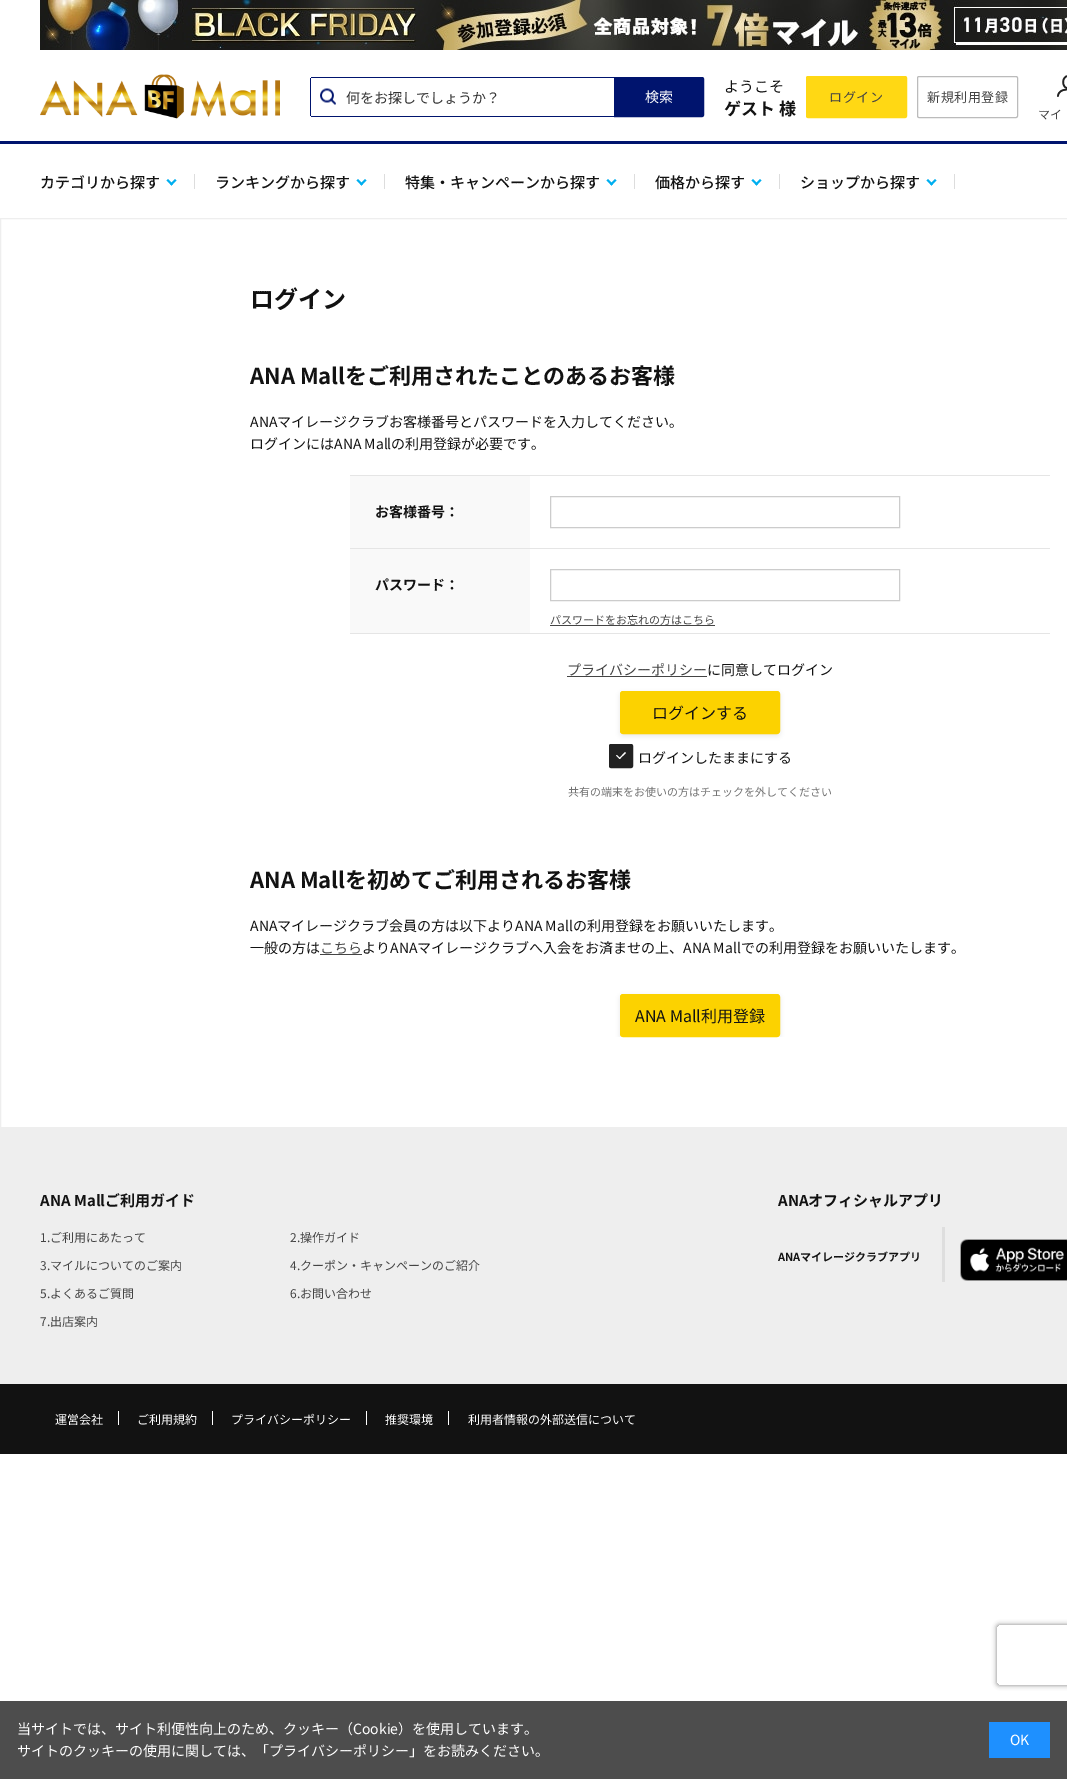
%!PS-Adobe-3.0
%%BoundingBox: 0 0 1067 1779
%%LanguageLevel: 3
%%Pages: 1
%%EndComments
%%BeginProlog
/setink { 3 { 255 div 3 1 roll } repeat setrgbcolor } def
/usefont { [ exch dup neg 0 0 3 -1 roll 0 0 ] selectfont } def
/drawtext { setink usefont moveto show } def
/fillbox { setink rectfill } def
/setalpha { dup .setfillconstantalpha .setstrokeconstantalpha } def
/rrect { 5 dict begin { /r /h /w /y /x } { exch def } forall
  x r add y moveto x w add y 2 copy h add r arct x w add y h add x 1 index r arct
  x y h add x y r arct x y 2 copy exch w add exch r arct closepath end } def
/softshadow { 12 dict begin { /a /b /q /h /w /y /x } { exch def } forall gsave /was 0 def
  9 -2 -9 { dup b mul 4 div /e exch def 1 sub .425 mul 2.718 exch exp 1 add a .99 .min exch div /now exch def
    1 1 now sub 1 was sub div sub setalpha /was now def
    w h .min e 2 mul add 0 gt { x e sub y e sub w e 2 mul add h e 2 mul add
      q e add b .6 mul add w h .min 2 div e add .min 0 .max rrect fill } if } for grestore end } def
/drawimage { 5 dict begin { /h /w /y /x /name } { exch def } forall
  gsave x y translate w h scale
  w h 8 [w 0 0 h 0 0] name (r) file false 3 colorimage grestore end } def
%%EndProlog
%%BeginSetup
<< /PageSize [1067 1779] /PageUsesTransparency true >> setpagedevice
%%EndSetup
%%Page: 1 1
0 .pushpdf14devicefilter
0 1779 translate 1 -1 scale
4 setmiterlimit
0 0 1067 1779 255 255 255 fillbox
(assets/img1.rgb) 40 0 1027 50 drawimage
(assets/img2.rgb) 40 74 240 45 drawimage
(assets/img3.rgb) 320 88 16 17 drawimage
311 77 303 1 0 20 110 fillbox
311 116 303 1 0 20 110 fillbox
310 78 1 38 0 20 110 fillbox
(何をお探しでしょうか？) 346 103 /NotoSansJP-Regular 14 51 51 51 drawtext
0 20 110 setink
614.5 77.5 moveto 702 77.5 lineto 703 77.5 703.5 78 703.5 79 curveto 703.5 115 lineto 703.5 116 703 116.5 702 116.5 curveto 614.5 116.5 lineto closepath gsave fill grestore
stroke
(検索) 645 102 /NotoSansJP-Regular 14 255 255 255 drawtext
(ようこそ) 724 92 /NotoSansJP-Regular 15 18 18 18 drawtext
(ゲスト 様) 724 115 /NotoSansJP-Bold 17 18 18 18 drawtext
255 216 20 setink
806.5 76.5 100 41 1.5 rrect gsave fill grestore
stroke
/NotoSansJP-Regular 13 usefont
68 68 68 setink
829 102 moveto 0.5 0 (ログイン) ashow
187 187 187 setink
917.5 76.5 100 41 1.5 rrect stroke
68 68 68 setink
927 102 moveto 0.5 0 (新規利用登録) ashow
(assets/img4.rgb) 1057 75 10 22 drawimage
(マイ) 1038 119 /NotoSansJP-Regular 12 68 68 68 drawtext
0 141 1067 3 0 20 110 fillbox
(カテゴリから探す) 40 188 /NotoSansJP-Medium 15 18 18 18 drawtext
0 175 240 setink
175 179 moveto 176.5 180.5 lineto 171.5 185.5 lineto 170 184 lineto closepath fill
168 179 moveto 173 184 lineto 171.5 185.5 lineto 166.5 180.5 lineto closepath fill
194 174 1 15 221 221 221 fillbox
(ランキングから探す) 215 188 /NotoSansJP-Medium 15 18 18 18 drawtext
0 175 240 setink
365 179 moveto 366.5 180.5 lineto 361.5 185.5 lineto 360 184 lineto closepath fill
358 179 moveto 363 184 lineto 361.5 185.5 lineto 356.5 180.5 lineto closepath fill
384 174 1 15 221 221 221 fillbox
(特集・キャンペーンから探す) 405 188 /NotoSansJP-Medium 15 18 18 18 drawtext
0 175 240 setink
615 179 moveto 616.5 180.5 lineto 611.5 185.5 lineto 610 184 lineto closepath fill
608 179 moveto 613 184 lineto 611.5 185.5 lineto 606.5 180.5 lineto closepath fill
634 174 1 15 221 221 221 fillbox
(価格から探す) 655 188 /NotoSansJP-Medium 15 18 18 18 drawtext
0 175 240 setink
760 179 moveto 761.5 180.5 lineto 756.5 185.5 lineto 755 184 lineto closepath fill
753 179 moveto 758 184 lineto 756.5 185.5 lineto 751.5 180.5 lineto closepath fill
779 174 1 15 221 221 221 fillbox
(ショップから探す) 800 188 /NotoSansJP-Medium 15 18 18 18 drawtext
0 175 240 setink
935 179 moveto 936.5 180.5 lineto 931.5 185.5 lineto 930 184 lineto closepath fill
928 179 moveto 933 184 lineto 931.5 185.5 lineto 926.5 180.5 lineto closepath fill
954 174 1 15 221 221 221 fillbox
238 238 238 setink
0.5 218.5 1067 909 rectstroke
(ログイン) 250 308 /NotoSansJP-Bold 24 18 18 18 drawtext
(ANA Mallをご利用されたことのあるお客様) 250 384 /NotoSansJP-Bold 22 18 18 18 drawtext
(ANAマイレージクラブお客様番号とパスワードを入力してください。) 250 427 /NotoSansJP-Regular 14 18 18 18 drawtext
(ログインにはANA Mallの利用登録が必要です。) 250 449 /NotoSansJP-Regular 14 18 18 18 drawtext
350 475 700 1 229 229 229 fillbox
350 476 180 72 249 249 249 fillbox
(お客様番号：) 375 517 /NotoSansJP-Bold 14 18 18 18 drawtext
204 204 204 setink
550.5 496.5 349 31 rectstroke
350 548 700 1 229 229 229 fillbox
350 633 700 1 229 229 229 fillbox
350 549 180 84 249 249 249 fillbox
(パスワード：) 375 590 /NotoSansJP-Bold 14 18 18 18 drawtext
204 204 204 setink
550.5 569.5 349 31 rectstroke
(パスワードをお忘れの方はこちら) 550 624 /NotoSansJP-Regular 11 68 68 68 drawtext
550 625 165 1 68 68 68 fillbox
(プライバシーポリシー) 567 675 /NotoSansJP-Regular 14 68 68 68 drawtext
567 676 140 1 68 68 68 fillbox
(に同意してログイン) 707 675 /NotoSansJP-Regular 14 18 18 18 drawtext
213 217 217 setink
620 693 160 43 3 2.5 0.5 softshadow
252 210 0 setink
620.5 691.5 159 42 2.5 rrect gsave fill grestore
stroke
(ログインする) 652 719 /NotoSansJP-Regular 16 18 18 18 drawtext
34 34 34 setink
609.5 744.5 23 23 1.5 rrect gsave fill grestore
stroke
255 255 255 setink
625 752 moveto 626 753 lineto 619.5 759 lineto 619 758.5 lineto closepath fill
617 755 moveto 620.5 758.5 lineto 619.5 759 lineto 616 755.5 lineto closepath fill
(ログインしたままにする) 638 763 /NotoSansJP-Regular 14 18 18 18 drawtext
(共有の端末をお使いの方はチェックを外してください) 568 796 /NotoSansJP-Regular 11 115 115 115 drawtext
(ANA Mallを初めてご利用されるお客様) 250 888 /NotoSansJP-Bold 22 18 18 18 drawtext
(ANAマイレージクラブ会員の方は以下よりANA Mallの利用登録をお願いいたします。) 250 931 /NotoSansJP-Regular 14 18 18 18 drawtext
(一般の方は) 250 953 /NotoSansJP-Regular 14 18 18 18 drawtext
(こちら) 320 953 /NotoSansJP-Regular 14 68 68 68 drawtext
320 954 42 1 68 68 68 fillbox
(よりANAマイレージクラブへ入会をお済ませの上、ANA Mallでの利用登録をお願いいたします。) 362 953 /NotoSansJP-Regular 14 18 18 18 drawtext
gsave
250 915 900 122 rectclip
213 217 217 setink
620 996 160 43 3 2.5 0.5 softshadow
grestore
252 210 0 setink
620.5 994.5 159 42 2.5 rrect gsave fill grestore
stroke
(ANA Mall利用登録) 635 1022 /NotoSansJP-Regular 16 18 18 18 drawtext
0 1128 1067 256 238 238 238 fillbox
(ANA Mallご利用ガイド) 40 1206 /NotoSansJP-Bold 15 18 18 18 drawtext
(1.ご利用にあたって) 40 1242 /NotoSansJP-Regular 12 68 68 68 drawtext
(2.操作ガイド) 290 1242 /NotoSansJP-Regular 12 68 68 68 drawtext
(3.マイルについてのご案内) 40 1270 /NotoSansJP-Regular 12 68 68 68 drawtext
(4.クーポン・キャンペーンのご紹介) 290 1270 /NotoSansJP-Regular 12 68 68 68 drawtext
(5.よくあるご質問) 40 1298 /NotoSansJP-Regular 12 68 68 68 drawtext
(6.お問い合わせ) 290 1298 /NotoSansJP-Regular 12 68 68 68 drawtext
(7.出店案内) 40 1326 /NotoSansJP-Regular 12 68 68 68 drawtext
(ANAオフィシャルアプリ) 778 1206 /NotoSansJP-Bold 15 18 18 18 drawtext
(ANAマイレージクラブアプリ) 778 1261 /NotoSansJP-Bold 11 18 18 18 drawtext
942 1227 3 55 222 222 222 fillbox
(assets/img5.rgb) 960 1239 107 42 drawimage
0 1384 1067 70 18 18 18 fillbox
118 1411 1 14 255 255 255 fillbox
(運営会社) 55 1424 /NotoSansJP-Regular 12 255 255 255 drawtext
212 1411 1 14 255 255 255 fillbox
(ご利用規約) 137 1424 /NotoSansJP-Regular 12 255 255 255 drawtext
366 1411 1 14 255 255 255 fillbox
(プライバシーポリシー) 231 1424 /NotoSansJP-Regular 12 255 255 255 drawtext
448 1411 1 14 255 255 255 fillbox
(推奨環境) 385 1424 /NotoSansJP-Regular 12 255 255 255 drawtext
(利用者情報の外部送信について) 468 1424 /NotoSansJP-Regular 12 255 255 255 drawtext
gsave
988 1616 moveto 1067 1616 lineto 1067 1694 lineto 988 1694 lineto closepath 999 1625 moveto 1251 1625 lineto 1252 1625 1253 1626 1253 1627 curveto 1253 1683 lineto 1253 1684 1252 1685 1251 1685 curveto 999 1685 lineto 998 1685 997 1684 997 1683 curveto 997 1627 lineto 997 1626 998 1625 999 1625 curveto closepath eoclip newpath
128 128 128 setink
997 1625 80 60 2 2.5 1 softshadow
grestore
0 1701 1067 78 77 77 77 fillbox
(当サイトでは、サイト利便性向上のため、クッキー（Cookie）を使用しています。) 17 1734 /NotoSansJP-Regular 14 255 255 255 drawtext
(サイトのクッキーの使用に関しては、「プライバシーポリシー」をお読みください。) 17 1756 /NotoSansJP-Regular 14 255 255 255 drawtext
989 1722 61 36 30 144 255 fillbox
(OK) 1010 1745 /NotoSansJP-Regular 14 255 255 255 drawtext
.poppdf14devicefilter showpage
%%EOF
